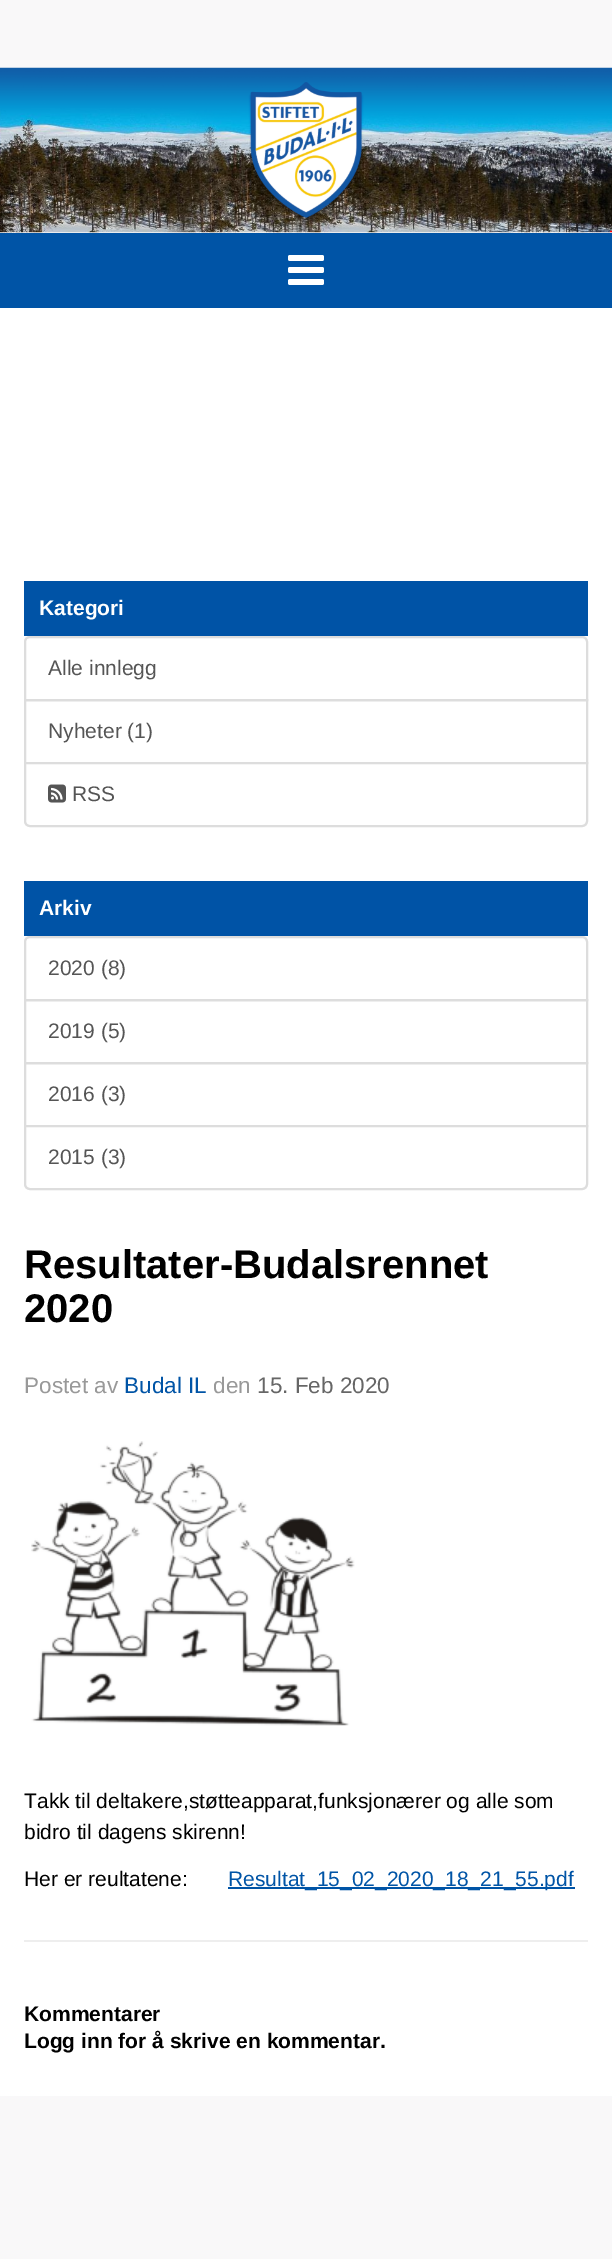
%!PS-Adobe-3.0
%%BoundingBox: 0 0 612 2259
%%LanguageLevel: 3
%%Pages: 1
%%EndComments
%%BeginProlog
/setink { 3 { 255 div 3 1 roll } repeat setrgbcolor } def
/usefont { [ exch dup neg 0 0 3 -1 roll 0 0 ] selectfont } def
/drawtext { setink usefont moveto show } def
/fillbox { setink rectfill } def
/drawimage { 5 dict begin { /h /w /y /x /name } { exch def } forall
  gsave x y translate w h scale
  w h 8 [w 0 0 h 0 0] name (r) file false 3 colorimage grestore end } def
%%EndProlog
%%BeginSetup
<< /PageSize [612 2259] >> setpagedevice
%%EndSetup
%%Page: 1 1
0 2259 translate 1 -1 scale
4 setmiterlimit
0 0 612 2259 249 248 249 fillbox
(assets/img1.rgb) 0 67 612 166 drawimage
0 233 612 75 0 84 166 fillbox
(assets/img2.rgb) 288 255 36 30 drawimage
0 308 612 1788 255 255 255 fillbox
24 581 564 55 0 83 166 fillbox
(Kategori) 39 615 /LiberationSans-Bold 21 255 255 255 drawtext
221 221 221 setink
2 setlinewidth
30 637 moveto 582 637 lineto 585 637 587 639 587 642 curveto 587 700 lineto 25 700 lineto 25 642 lineto 25 639 27 637 30 637 curveto closepath stroke
(Alle innlegg) 48 675 /LiberationSans-Regular 21 85 85 85 drawtext
221 221 221 setink
25 700 562 63 rectstroke
(Nyheter \(1\)) 48 738 /LiberationSans-Regular 21 85 85 85 drawtext
255 255 255 setink
25 763 moveto 587 763 lineto 587 821 lineto 587 824 585 826 582 826 curveto 30 826 lineto 27 826 25 824 25 821 curveto closepath gsave fill grestore
221 221 221 setink
stroke
(assets/img3.rgb) 48 784 18 19 drawimage
(RSS) 72 801 /LiberationSans-Regular 21 85 85 85 drawtext
24 881 564 55 0 83 166 fillbox
(Arkiv) 39 915 /LiberationSans-Bold 21 255 255 255 drawtext
221 221 221 setink
30 937 moveto 582 937 lineto 585 937 587 939 587 942 curveto 587 1000 lineto 25 1000 lineto 25 942 lineto 25 939 27 937 30 937 curveto closepath stroke
(2020 \(8\)) 48 975 /LiberationSans-Regular 21 85 85 85 drawtext
221 221 221 setink
25 1000 562 63 rectstroke
(2019 \(5\)) 48 1038 /LiberationSans-Regular 21 85 85 85 drawtext
221 221 221 setink
25 1063 562 63 rectstroke
(2016 \(3\)) 48 1101 /LiberationSans-Regular 21 85 85 85 drawtext
255 255 255 setink
25 1126 moveto 587 1126 lineto 587 1184 lineto 587 1187 585 1189 582 1189 curveto 30 1189 lineto 27 1189 25 1187 25 1184 curveto closepath gsave fill grestore
221 221 221 setink
stroke
(2015 \(3\)) 48 1164 /LiberationSans-Regular 21 85 85 85 drawtext
(Resultater-Budalsrennet) 24 1278 /LiberationSans-Bold 40 0 0 0 drawtext
(2020) 24 1322 /LiberationSans-Bold 40 0 0 0 drawtext
(Postet av) 24 1393 /LiberationSans-Regular 22.5 153 153 153 drawtext
(Budal IL) 124 1393 /LiberationSans-Regular 22.5 0 84 166 drawtext
(den) 213 1393 /LiberationSans-Regular 22.5 153 153 153 drawtext
(15. Feb 2020) 257 1393 /LiberationSans-Regular 22.5 102 102 102 drawtext
(assets/img4.rgb) 31 1441 324 285 drawimage
(Takk til deltakere,støtteapparat,funksjonærer og alle som) 24 1808 /LiberationSans-Regular 21 0 0 0 drawtext
(bidro til dagens skirenn!) 24 1839 /LiberationSans-Regular 21 0 0 0 drawtext
(Her er reultatene:) 24 1886 /LiberationSans-Regular 21 0 0 0 drawtext
228 1887 347 2 0 84 166 fillbox
(Resultat_15_02_2020_18_21_55.pdf) 228 1886 /LiberationSans-Regular 21 0 84 166 drawtext
24 1940 564 2 238 238 238 fillbox
(Kommentarer) 24 2021 /LiberationSans-Bold 21 0 0 0 drawtext
(Logg inn for å skrive en kommentar.) 24 2048 /LiberationSans-Bold 21 0 0 0 drawtext
showpage
%%EOF
